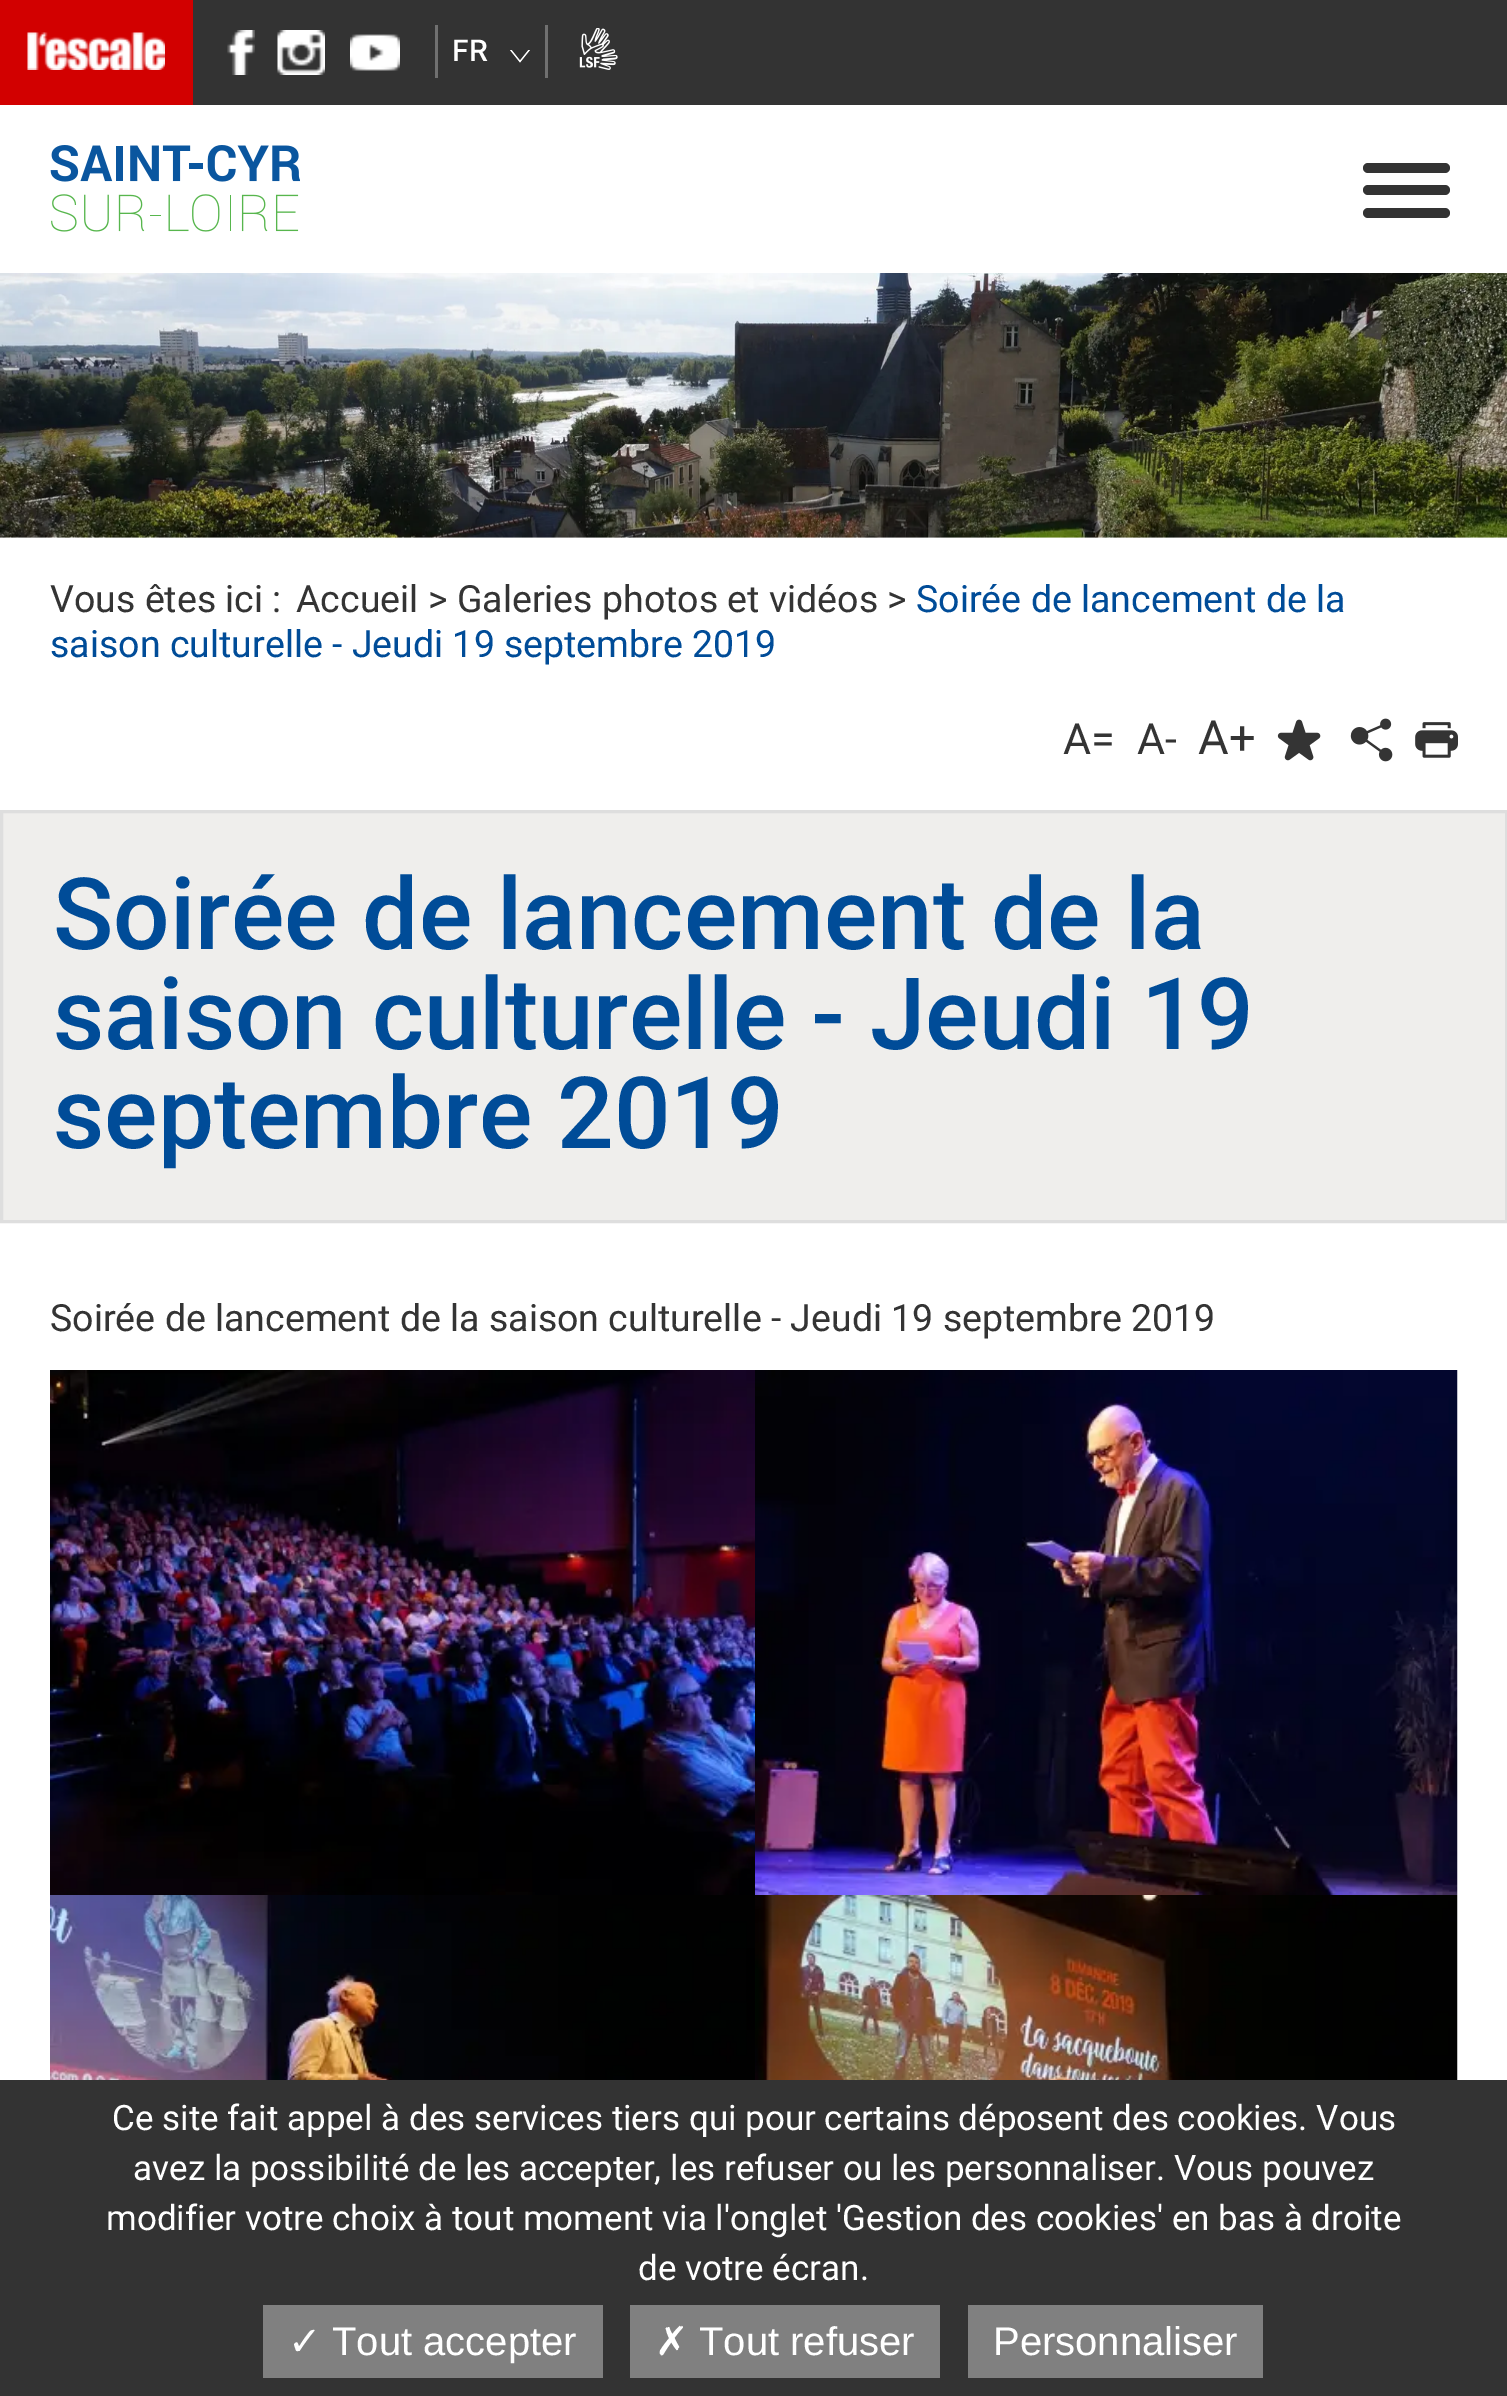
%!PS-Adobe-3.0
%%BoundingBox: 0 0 1507 2396
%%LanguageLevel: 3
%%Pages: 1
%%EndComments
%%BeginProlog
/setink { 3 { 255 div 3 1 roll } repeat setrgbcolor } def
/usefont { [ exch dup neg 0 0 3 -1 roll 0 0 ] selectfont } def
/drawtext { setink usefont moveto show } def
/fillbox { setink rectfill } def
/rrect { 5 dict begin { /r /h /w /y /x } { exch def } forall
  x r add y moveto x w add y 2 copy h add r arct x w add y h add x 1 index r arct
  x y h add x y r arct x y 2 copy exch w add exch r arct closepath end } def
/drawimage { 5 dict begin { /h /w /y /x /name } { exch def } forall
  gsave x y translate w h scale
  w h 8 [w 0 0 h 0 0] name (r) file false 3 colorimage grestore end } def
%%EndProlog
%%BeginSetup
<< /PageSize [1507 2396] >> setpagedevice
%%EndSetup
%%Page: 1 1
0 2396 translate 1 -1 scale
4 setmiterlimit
0 0 1507 2396 255 255 255 fillbox
193 0 1314 105 51 51 51 fillbox
0 0 193 105 210 0 0 fillbox
(assets/img1.rgb) 27 32 138 38 drawimage
(assets/img2.rgb) 227 30 28 45 drawimage
(assets/img3.rgb) 277 30 48 45 drawimage
(assets/img4.rgb) 350 34 50 37 drawimage
545 25 3 53 112 112 112 fillbox
435 25 3 53 112 112 112 fillbox
(FR) 452 61 /Roboto-Medium 30 255 255 255 drawtext
510 50 moveto 530 50 lineto 520 62.5 lineto closepath fill
51 51 51 setink
510 47.5 moveto 530 47.5 lineto 520 60 lineto closepath fill
(assets/img5.rgb) 579 28 39 42 drawimage
(assets/img6.rgb) 50 145 250 87 drawimage
1363 163 87 10 5 rrect fill
1363 185 87 10 5 rrect fill
1363 208 87 10 5 rrect fill
(assets/img7.rgb) 0 273 1507 265 drawimage
(Vous êtes ici :) 50 612 /Roboto-Regular 37.5 52 52 52 drawtext
(Accueil > Galeries photos et vidéos >) 296 612 /Roboto-Regular 37.5 52 52 52 drawtext
(Soirée de lancement de la) 916 612 /Roboto-Regular 37.5 0 76 152 drawtext
(saison culturelle - Jeudi 19 septembre 2019) 50 657 /Roboto-Regular 37.5 0 76 152 drawtext
(A=) 1063 754 /Roboto-Regular 43 52 52 52 drawtext
(A-) 1137 754 /Roboto-Regular 43 52 52 52 drawtext
(A+) 1198 754 /Roboto-Regular 47 52 52 52 drawtext
(assets/img8.rgb) 1277 719 44 42 drawimage
(assets/img9.rgb) 1350 718 43 44 drawimage
(assets/img10.rgb) 1415 722 43 36 drawimage
239 238 236 setink
1.5 811.5 moveto 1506.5 811.5 lineto 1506.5 1221.5 lineto 1.5 1221.5 lineto closepath gsave fill grestore
222 222 222 setink
3 setlinewidth
stroke
(Soirée de lancement de la) 53 949 /Roboto-Medium 99.75 0 76 152 drawtext
(saison culturelle - Jeudi 19) 53 1049 /Roboto-Medium 99.75 0 76 152 drawtext
(septembre 2019) 53 1148 /Roboto-Medium 99.75 0 76 152 drawtext
(Soirée de lancement de la saison culturelle - Jeudi 19 septembre 2019) 50 1331 /Roboto-Regular 37.5 52 52 52 drawtext
(assets/img11.rgb) 50 1370 705 525 drawimage
(assets/img12.rgb) 755 1370 703 525 drawimage
(assets/img13.rgb) 50 1895 705 185 drawimage
(assets/img14.rgb) 755 1895 703 185 drawimage
0 2080 1507 316 51 51 51 fillbox
(Ce site fait appel à des services tiers qui pour certains déposent des cookies. Vous) 112 2130 /Roboto-Regular 35 255 255 255 drawtext
(avez la possibilité de les accepter, les refuser ou les personnaliser. Vous pouvez) 133 2180 /Roboto-Regular 35 255 255 255 drawtext
(modifier votre choix à tout moment via l'onglet 'Gestion des cookies' en bas à droite) 106 2230 /Roboto-Regular 35 255 255 255 drawtext
(de votre écran.) 638 2280 /Roboto-Regular 35 255 255 255 drawtext
263 2305 340 73 128 128 128 fillbox
(✓) 288 2355 /DejaVuSans-Regular 40 255 255 255 drawtext
(Tout accepter) 332 2355 /LiberationSans-Regular 40 255 255 255 drawtext
630 2305 310 73 128 128 128 fillbox
(✗) 655 2355 /DejaVuSans-Regular 40 255 255 255 drawtext
(Tout refuser) 699 2355 /LiberationSans-Regular 40 255 255 255 drawtext
968 2305 295 73 128 128 128 fillbox
(Personnaliser) 993 2355 /LiberationSans-Regular 40 255 255 255 drawtext
showpage
%%EOF
